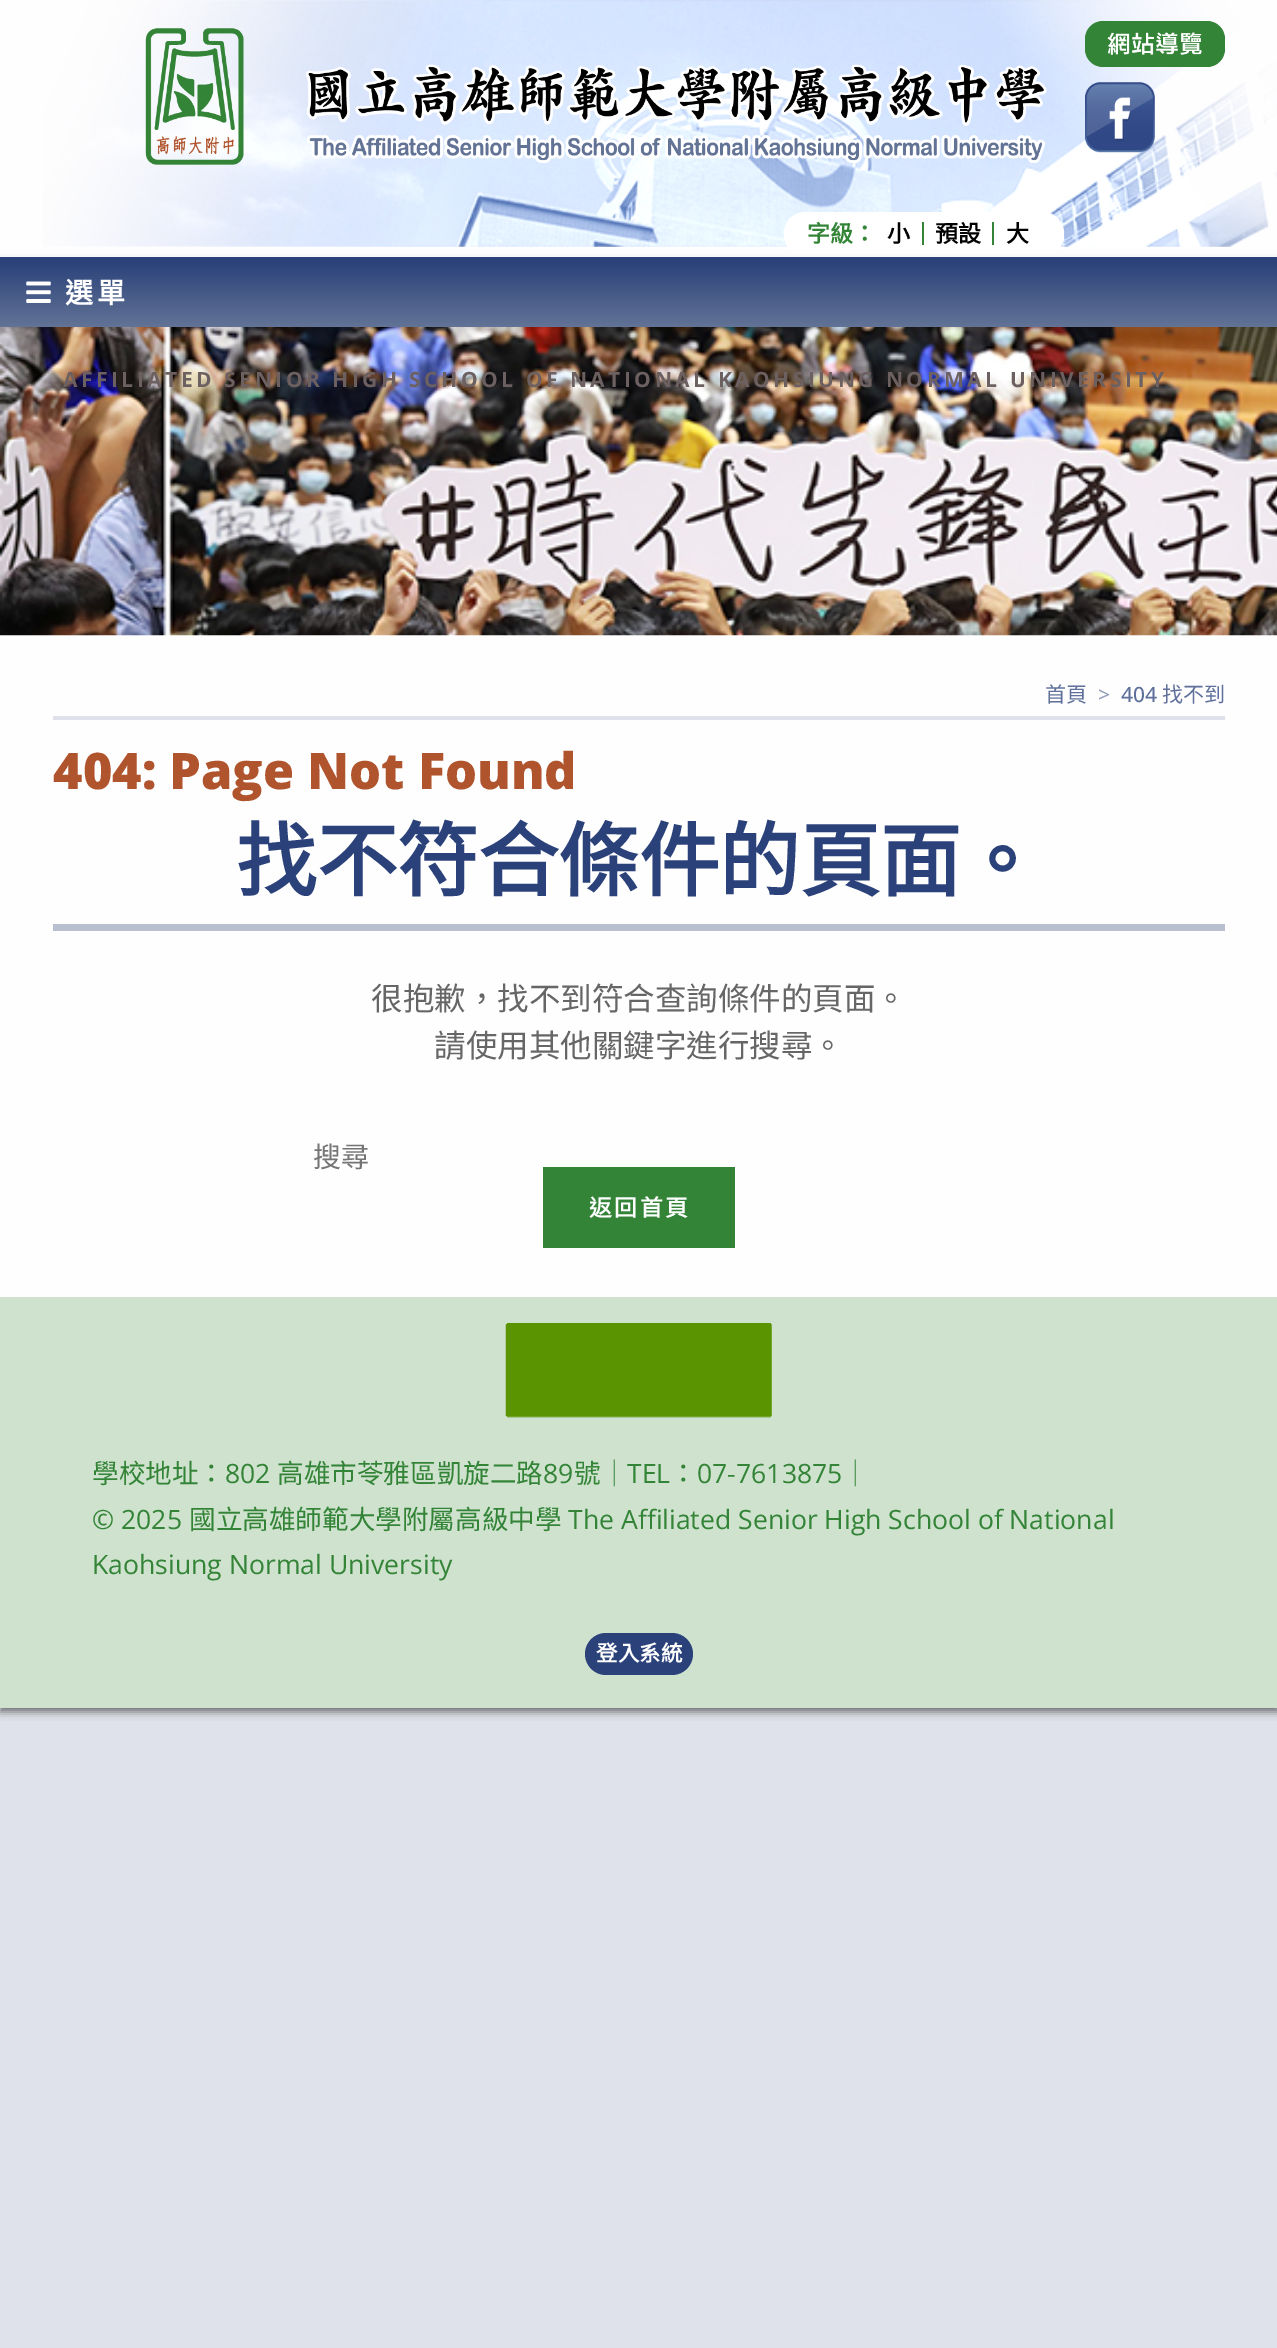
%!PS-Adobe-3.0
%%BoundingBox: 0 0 1277 2348
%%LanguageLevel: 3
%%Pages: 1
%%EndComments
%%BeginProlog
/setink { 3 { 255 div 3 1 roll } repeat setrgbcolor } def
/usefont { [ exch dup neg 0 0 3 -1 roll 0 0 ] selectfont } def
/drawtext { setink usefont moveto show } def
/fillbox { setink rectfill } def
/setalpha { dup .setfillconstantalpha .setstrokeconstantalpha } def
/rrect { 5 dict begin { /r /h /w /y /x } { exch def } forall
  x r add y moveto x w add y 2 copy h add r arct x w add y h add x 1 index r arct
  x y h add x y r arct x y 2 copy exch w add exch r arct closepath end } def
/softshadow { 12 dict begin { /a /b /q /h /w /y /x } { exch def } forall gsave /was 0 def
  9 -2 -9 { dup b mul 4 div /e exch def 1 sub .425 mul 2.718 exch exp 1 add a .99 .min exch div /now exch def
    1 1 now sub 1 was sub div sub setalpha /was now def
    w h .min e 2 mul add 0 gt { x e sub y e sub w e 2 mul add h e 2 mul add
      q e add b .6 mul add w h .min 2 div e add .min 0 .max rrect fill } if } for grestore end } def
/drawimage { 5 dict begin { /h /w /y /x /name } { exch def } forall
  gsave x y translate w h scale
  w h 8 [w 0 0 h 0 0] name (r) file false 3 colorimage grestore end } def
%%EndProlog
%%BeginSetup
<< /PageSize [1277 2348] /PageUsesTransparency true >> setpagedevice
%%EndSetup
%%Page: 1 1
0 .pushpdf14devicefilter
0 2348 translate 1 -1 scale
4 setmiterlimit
0 0 1277 2348 223 226 235 fillbox
0 0 0 setink
0 4 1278 1708 0 4 0.5 softshadow
0 0 1277 1297 255 254 254 fillbox
(assets/img1.rgb) 43 0 1234 247 drawimage
52 132 56 setink
1085 21 140 46 18 rrect fill
(assets/img2.rgb) 1107 32 95 23 drawimage
(assets/img3.rgb) 1085 82 70 71 drawimage
(assets/img4.rgb) 145 28 902 137 drawimage
255 255 255 setink
784 212 280 44 21 rrect fill
(字級：) 807 242 /NotoSansCJKTC-Bold 23 52 132 56 drawtext
922 222 2 23 52 132 56 fillbox
(小) 887 242 /NotoSansCJKTC-Bold 23 0 0 0 drawtext
992 222 2 23 52 132 56 fillbox
(預設) 935 242 /NotoSansCJKTC-Bold 23 0 0 0 drawtext
(大) 1006 242 /NotoSansCJKTC-Bold 23 0 0 0 drawtext
(assets/img5.rgb) 0 327 1277 309 drawimage
0 259 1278 70 0 4.5 0.1 softshadow
gsave 0 257 moveto 1277 257 lineto 1277 327 lineto 0 327 lineto closepath clip newpath
<< /ShadingType 2 /ColorSpace /DeviceRGB /Coords [639 257 639 327] /Extend [true true] /Function << /FunctionType 3 /Domain [0 1] /Functions [<< /FunctionType 2 /Domain [0 1] /C0 [0.165 0.255 0.478] /C1 [0.165 0.255 0.478] /N 1 >> << /FunctionType 2 /Domain [0 1] /C0 [0.165 0.255 0.478] /C1 [0.384 0.451 0.588] /N 1 >>] /Bounds [0.05] /Encode [0 1 0 1] >> >> shfill grestore
(assets/img6.rgb) 26 281 25 22 drawimage
/NotoSansCJKTC-Bold 28 usefont
255 255 255 setink
65 303 moveto 3.5 0 (選單) ashow
/OpenSans-Bold 21 usefont
109 96 97 setink
63 387 moveto 3.5 0 (AFFILIATED SENIOR HIGH SCHOOL OF NATIONAL KAOHSIUNG NORMAL UNIVERSITY) ashow
53 716 1172 4 223 226 235 fillbox
(首頁) 1045 702 /NotoSansCJKTC-Regular 21 95 112 155 drawtext
(>) 1098 702 /OpenSans-Medium 21 148 160 188 drawtext
(404) 1121 702 /OpenSans-Medium 21 95 112 155 drawtext
(找不到) 1162 702 /NotoSansCJKTC-Regular 21 95 112 155 drawtext
(404: Page Not Found) 53 789 /OpenSans-ExtraBold 50.4 176 84 45 drawtext
53 924 1172 7 184 192 208 fillbox
(找不符合條件的頁面。) 236 890 /NotoSansCJKTC-Bold 80.5 42 65 122 drawtext
(很抱歉，找不到符合查詢條件的頁面。) 371 1010 /NotoSansCJKTC-Regular 31.5 102 102 102 drawtext
(請使用其他關鍵字進行搜尋。) 434 1057 /NotoSansCJKTC-Regular 31.5 102 102 102 drawtext
(搜尋) 313 1167 /NotoSansCJKTC-Regular 28 117 117 117 drawtext
543 1167 192 81 52 132 56 fillbox
/NotoSansCJKTC-Bold 22.75 usefont
255 255 255 setink
589 1216 moveto 2.5 0 (返回首頁) ashow
0 1297 1277 411 206 226 206 fillbox
(assets/img7.rgb) 505 1323 267 95 drawimage
(學校地址：) 92 1483 /NotoSansCJKTC-Regular 26.6 52 132 56 drawtext
(802) 225 1483 /OpenSans-Regular 26.6 52 132 56 drawtext
(高雄市苓雅區凱旋二路) 277 1483 /NotoSansCJKTC-Regular 26.6 52 132 56 drawtext
(89) 543 1483 /OpenSans-Regular 26.6 52 132 56 drawtext
(號｜) 574 1483 /NotoSansCJKTC-Regular 26.6 52 132 56 drawtext
(TEL) 627 1483 /OpenSans-Regular 26.6 52 132 56 drawtext
(：) 670 1483 /NotoSansCJKTC-Regular 26.6 52 132 56 drawtext
(07-7613875) 697 1483 /OpenSans-Regular 26.6 52 132 56 drawtext
(｜) 842 1483 /NotoSansCJKTC-Regular 26.6 52 132 56 drawtext
(© 2025) 92 1529 /OpenSans-Regular 26.6 52 132 56 drawtext
(國立高雄師範大學附屬高級中學) 189 1529 /NotoSansCJKTC-Regular 26.6 52 132 56 drawtext
(The Affiliated Senior High School of National) 568 1529 /OpenSans-Regular 26.6 52 132 56 drawtext
(Kaohsiung Normal University) 92 1574 /OpenSans-Regular 26.6 52 132 56 drawtext
42 65 122 setink
585 1633 108 42 21 rrect fill
(登入系統) 596 1661 /NotoSansCJKTC-Bold 21.5 255 255 255 drawtext
.poppdf14devicefilter showpage
%%EOF
